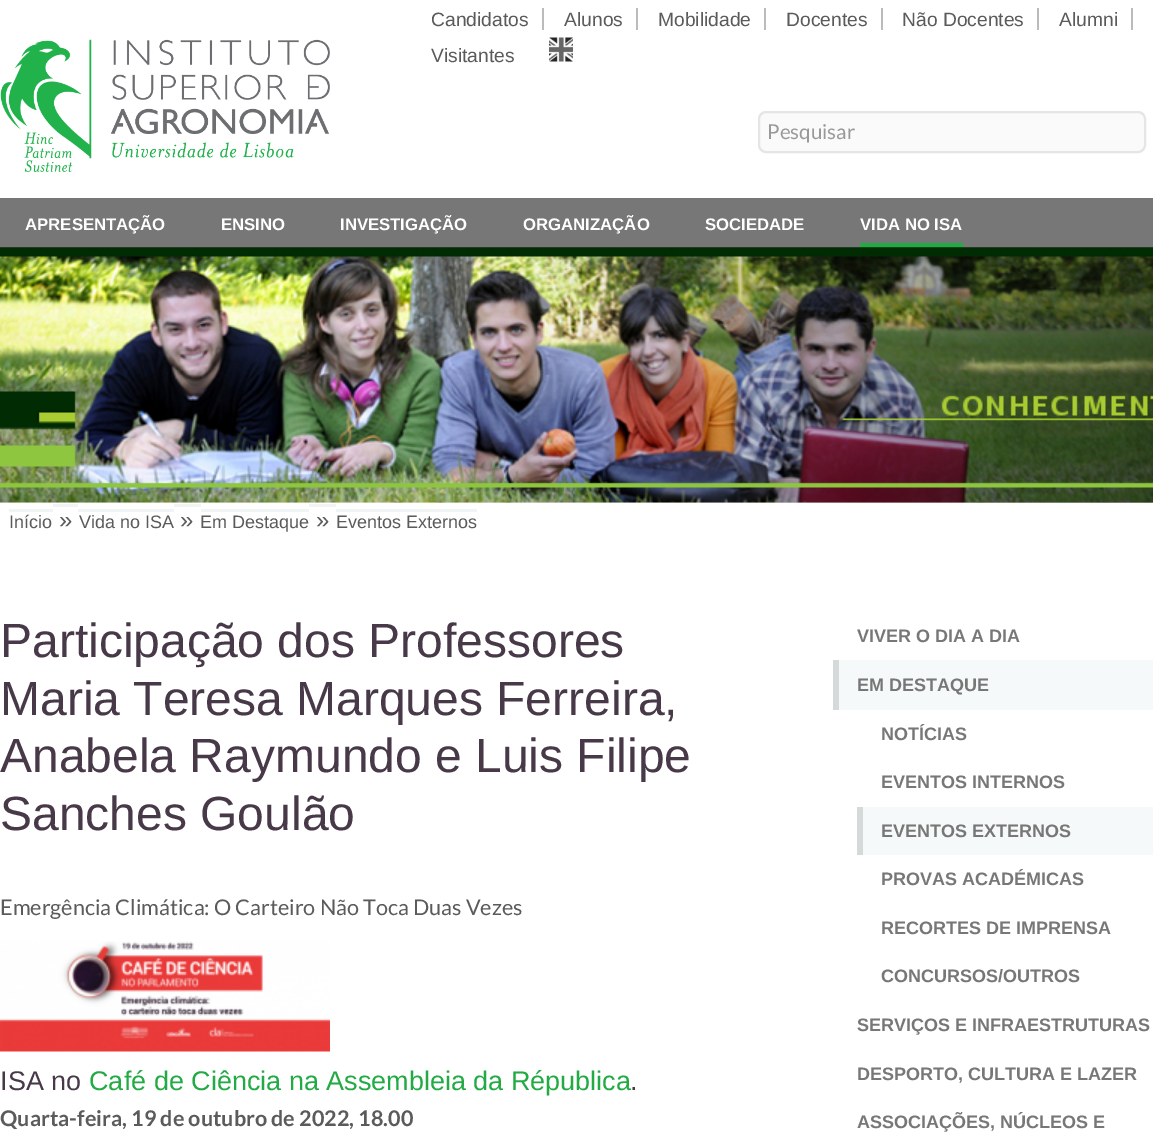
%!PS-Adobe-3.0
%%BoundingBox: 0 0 1153 1134
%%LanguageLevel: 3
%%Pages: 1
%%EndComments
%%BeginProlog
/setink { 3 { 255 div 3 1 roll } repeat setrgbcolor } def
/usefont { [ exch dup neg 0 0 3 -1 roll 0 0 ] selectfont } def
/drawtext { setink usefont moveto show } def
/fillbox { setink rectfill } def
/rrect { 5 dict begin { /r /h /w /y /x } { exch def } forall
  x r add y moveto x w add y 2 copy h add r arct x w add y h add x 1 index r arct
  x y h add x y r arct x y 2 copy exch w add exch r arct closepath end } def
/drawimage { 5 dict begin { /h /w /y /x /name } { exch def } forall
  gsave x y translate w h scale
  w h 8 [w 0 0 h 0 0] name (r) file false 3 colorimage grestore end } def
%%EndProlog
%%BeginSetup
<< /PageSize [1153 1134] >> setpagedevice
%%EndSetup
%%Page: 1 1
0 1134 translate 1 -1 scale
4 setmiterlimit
0 0 1153 1134 255 255 255 fillbox
(assets/img1.rgb) 0 39 330 133 drawimage
(Candidatos) 431 26 /LiberationSans-Regular 19.25 91 91 91 drawtext
542 8 2 22 187 187 187 fillbox
(Alunos) 564 26 /LiberationSans-Regular 19.25 91 91 91 drawtext
636 8 2 22 187 187 187 fillbox
(Mobilidade) 658 26 /LiberationSans-Regular 19.25 91 91 91 drawtext
764 8 2 22 187 187 187 fillbox
(Docentes) 786 26 /LiberationSans-Regular 19.25 91 91 91 drawtext
881 8 2 22 187 187 187 fillbox
(Não Docentes) 902 26 /LiberationSans-Regular 19.25 91 91 91 drawtext
1037 8 2 22 187 187 187 fillbox
(Alumni) 1059 26 /LiberationSans-Regular 19.25 91 91 91 drawtext
1131 8 2 22 187 187 187 fillbox
(Visitantes) 431 62 /LiberationSans-Regular 19.25 91 91 91 drawtext
(assets/img2.rgb) 549 37 24 25 drawimage
250 250 250 setink
759 112 386 40 7 rrect gsave fill grestore
229 229 229 setink
2 setlinewidth
stroke
(Pesquisar) 767 139 /Lato-Regular 20.5 153 153 153 drawtext
0 198 1153 50 119 119 119 fillbox
(APRESENTAÇÃO) 25 230 /LiberationSans-Bold 16.75 255 255 255 drawtext
(ENSINO) 221 230 /LiberationSans-Bold 16.75 255 255 255 drawtext
(INVESTIGAÇÃO) 340 230 /LiberationSans-Bold 16.75 255 255 255 drawtext
(ORGANIZAÇÃO) 523 230 /LiberationSans-Bold 16.75 255 255 255 drawtext
(SOCIEDADE) 705 230 /LiberationSans-Bold 16.75 255 255 255 drawtext
860 243 103 5 34 170 68 fillbox
(VIDA NO ISA) 860 230 /LiberationSans-Bold 16.75 255 255 255 drawtext
(assets/img3.rgb) 0 247 1153 256 drawimage
(assets/img4.rgb) 0 247 1153 256 drawimage
(Início) 9 528 /LiberationSans-Regular 18 91 91 91 drawtext
9 509 44 3 240 244 244 fillbox
(») 59 528 /LiberationSans-Regular 24 91 91 91 drawtext
(Vida no ISA) 79 528 /LiberationSans-Regular 18 91 91 91 drawtext
53 504 25 3 240 244 244 fillbox
78 509 96 3 240 244 244 fillbox
174 504 27 3 240 244 244 fillbox
(») 180 528 /LiberationSans-Regular 24 91 91 91 drawtext
(Em Destaque) 200 528 /LiberationSans-Regular 18 91 91 91 drawtext
201 509 108 3 240 244 244 fillbox
(») 316 528 /LiberationSans-Regular 24 91 91 91 drawtext
309 504 27 3 240 244 244 fillbox
(Eventos Externos) 336 528 /LiberationSans-Regular 18 91 91 91 drawtext
336 509 141 3 240 244 244 fillbox
(Participação dos Professores) 0 657 /LiberationSans-Regular 48 72 57 73 drawtext
(Maria Teresa Marques Ferreira,) 0 715 /LiberationSans-Regular 48 72 57 73 drawtext
(Anabela Raymundo e Luis Filipe) 0 772 /LiberationSans-Regular 48 72 57 73 drawtext
(Sanches Goulão) 0 830 /LiberationSans-Regular 48 72 57 73 drawtext
(Emergência Climática: O Carteiro Não Toca Duas Vezes) 0 915 /Lato-Regular 21.6 91 91 91 drawtext
(assets/img5.rgb) 0 941 330 111 drawimage
(ISA no) 0 1090 /LiberationSans-Regular 27 72 57 73 drawtext
(Café de Ciência na Assembleia da Républica) 89 1090 /LiberationSans-Regular 27 34 170 68 drawtext
(.) 630 1090 /LiberationSans-Regular 27 72 57 73 drawtext
(Quarta-feira, 19 de outubro de 2022, 18.00) 0 1126 /Lato-Bold 21.6 91 91 91 drawtext
(VIVER O DIA A DIA) 857 642 /LiberationSans-Bold 18 119 119 119 drawtext
839 660 314 50 245 249 249 fillbox
833 660 6 50 213 217 217 fillbox
(EM DESTAQUE) 857 691 /LiberationSans-Bold 18 119 119 119 drawtext
(NOTÍCIAS) 881 740 /LiberationSans-Bold 18 119 119 119 drawtext
(EVENTOS INTERNOS) 881 788 /LiberationSans-Bold 18 119 119 119 drawtext
863 807 290 48 245 249 249 fillbox
857 807 6 48 213 217 217 fillbox
(EVENTOS EXTERNOS) 881 837 /LiberationSans-Bold 18 119 119 119 drawtext
(PROVAS ACADÉMICAS) 881 885 /LiberationSans-Bold 18 119 119 119 drawtext
(RECORTES DE IMPRENSA) 881 934 /LiberationSans-Bold 18 119 119 119 drawtext
(CONCURSOS/OUTROS) 881 982 /LiberationSans-Bold 18 119 119 119 drawtext
(SERVIÇOS E INFRAESTRUTURAS) 857 1031 /LiberationSans-Bold 18 119 119 119 drawtext
(DESPORTO, CULTURA E LAZER) 857 1080 /LiberationSans-Bold 18 119 119 119 drawtext
(ASSOCIAÇÕES, NÚCLEOS E) 857 1128 /LiberationSans-Bold 18 119 119 119 drawtext
showpage
%%EOF
